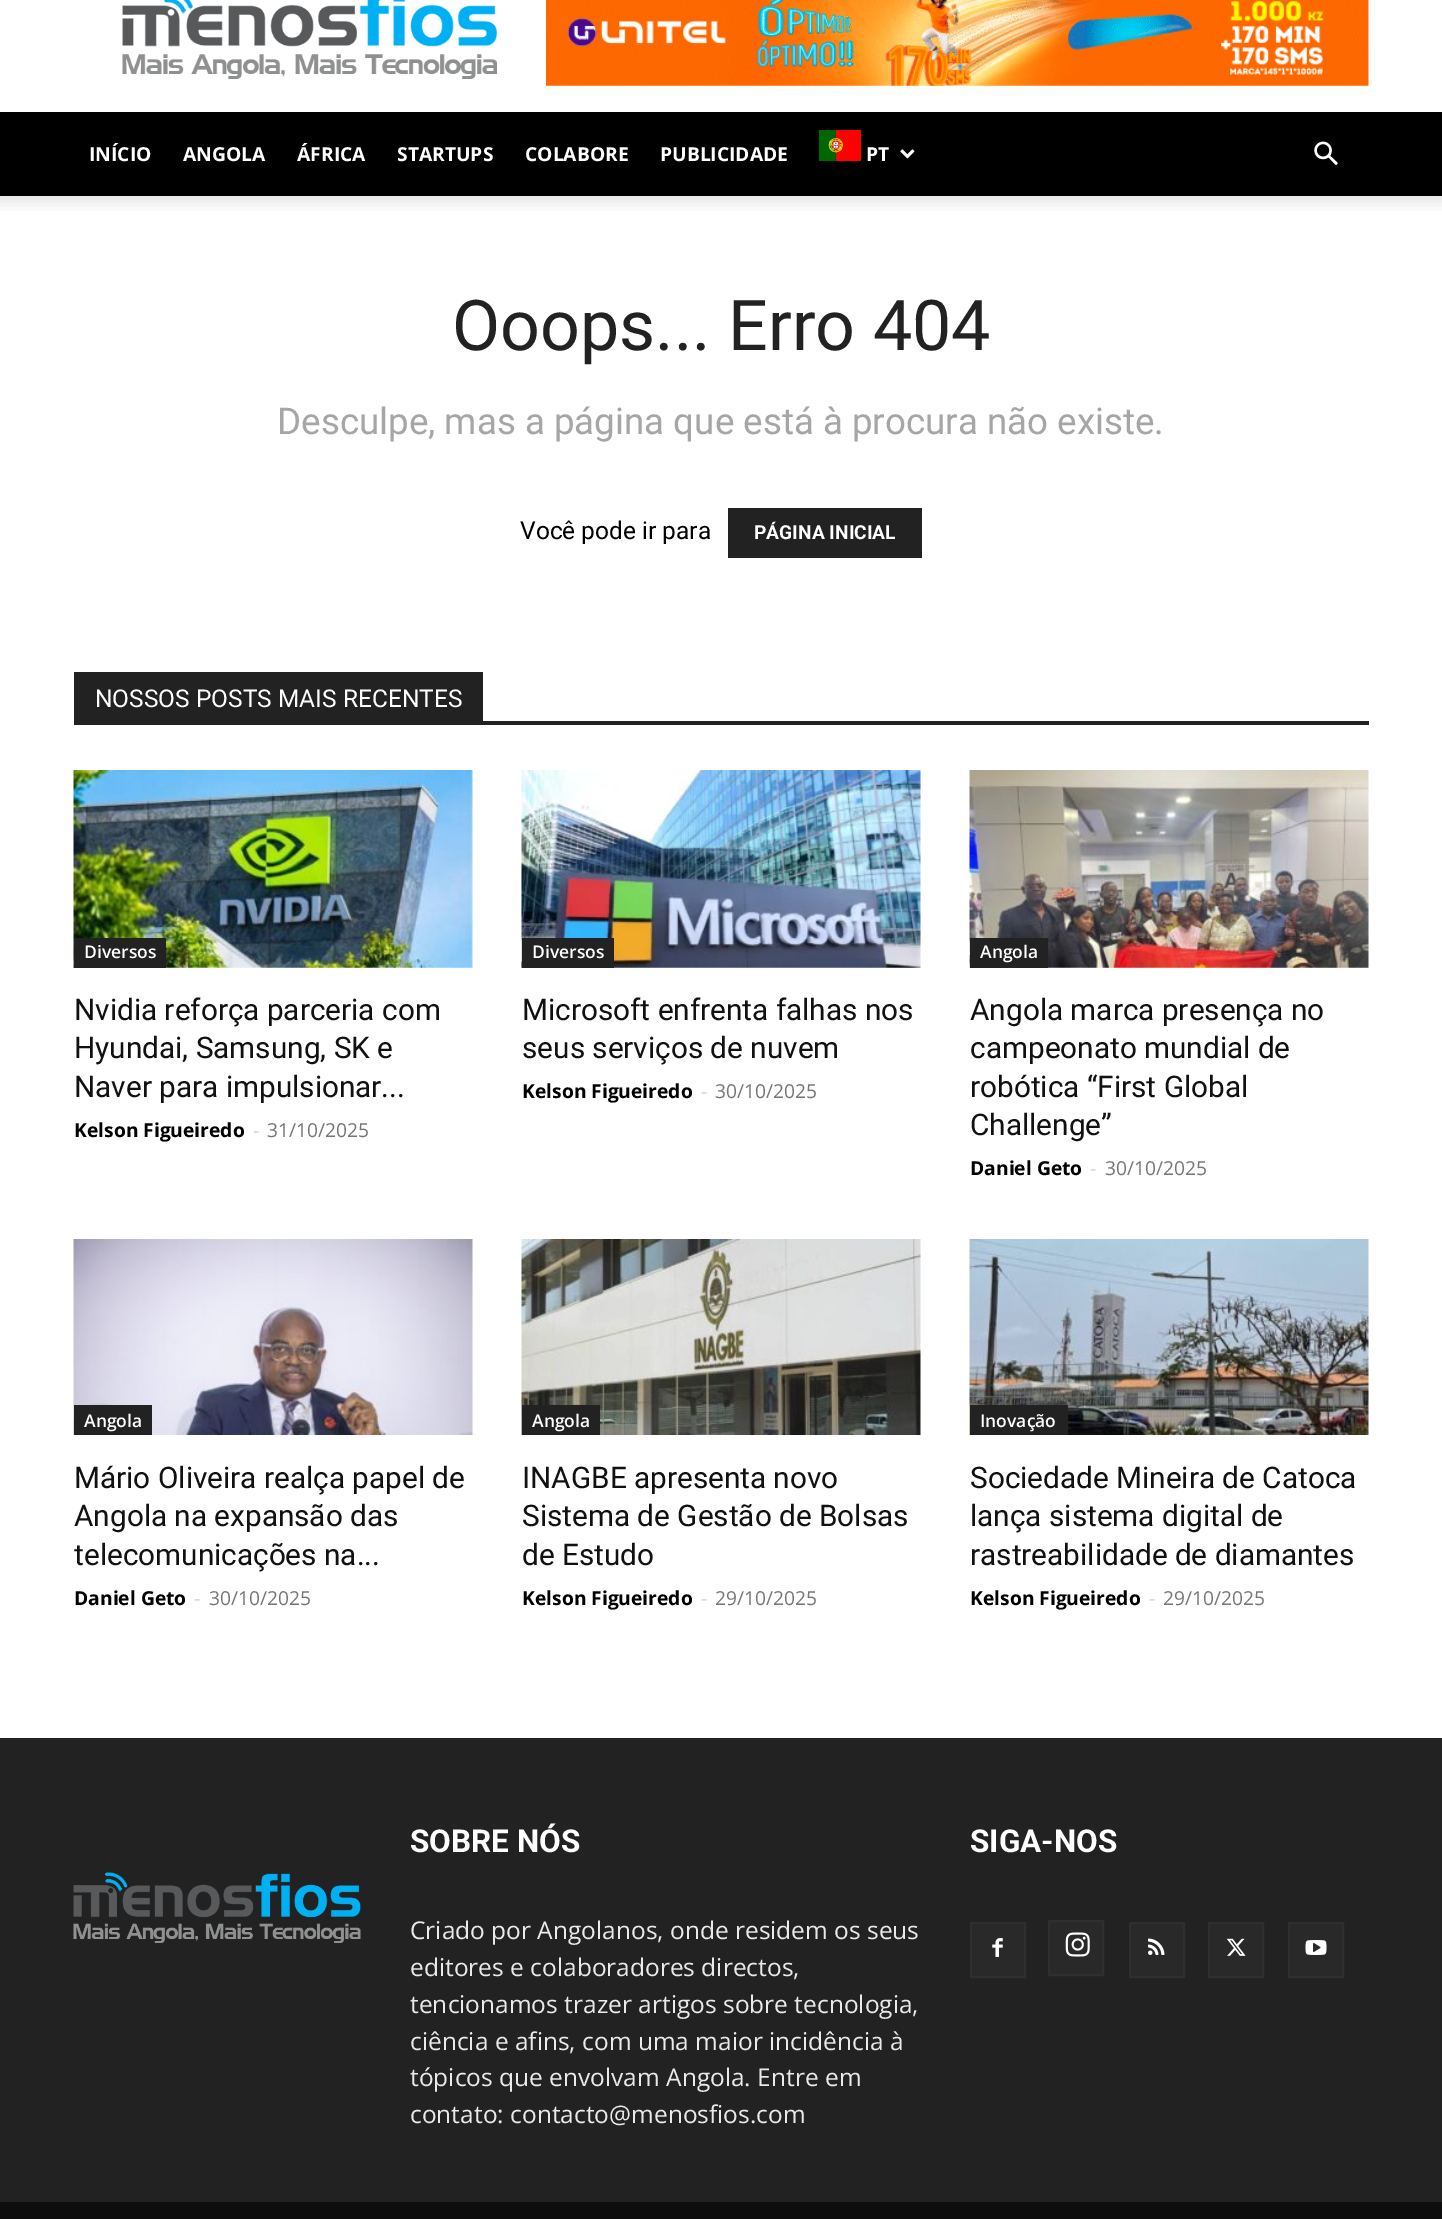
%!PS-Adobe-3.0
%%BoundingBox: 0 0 1442 2219
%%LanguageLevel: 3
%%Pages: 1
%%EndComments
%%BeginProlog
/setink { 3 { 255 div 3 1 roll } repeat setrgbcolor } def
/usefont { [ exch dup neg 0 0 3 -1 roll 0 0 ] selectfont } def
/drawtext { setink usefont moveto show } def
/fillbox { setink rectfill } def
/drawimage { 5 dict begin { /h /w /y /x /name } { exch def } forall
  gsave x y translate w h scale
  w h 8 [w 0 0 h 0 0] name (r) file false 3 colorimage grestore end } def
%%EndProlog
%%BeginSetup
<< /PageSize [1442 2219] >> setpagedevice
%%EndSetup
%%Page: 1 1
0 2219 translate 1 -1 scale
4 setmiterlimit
0 0 1442 2219 255 255 255 fillbox
(assets/img1.rgb) 122 0 375 79 drawimage
(assets/img2.rgb) 546 0 823 86 drawimage
0 112 1442 84 0 0 0 fillbox
(INÍCIO) 89 161 /OpenSans-Bold 19.25 255 255 255 drawtext
(ANGOLA) 183 161 /OpenSans-Bold 19.25 255 255 255 drawtext
(ÁFRICA) 297 161 /OpenSans-Bold 19.25 255 255 255 drawtext
(STARTUPS) 397 161 /OpenSans-Bold 19.25 255 255 255 drawtext
(COLABORE) 525 161 /OpenSans-Bold 19.25 255 255 255 drawtext
(PUBLICIDADE) 660 161 /OpenSans-Bold 19.25 255 255 255 drawtext
(assets/img3.rgb) 819 130 42 31 drawimage
(PT) 866 161 /OpenSans-Bold 19.25 255 255 255 drawtext
(assets/img4.rgb) 900 149 15 10 drawimage
(assets/img5.rgb) 1314 141 24 24 drawimage
(assets/img6.rgb) 0 196 1442 15 drawimage
(Ooops... Erro 404) 452 350 /Roboto-Regular 70 34 34 34 drawtext
(Desculpe, mas a página que está à procura não existe.) 277 434 /Roboto-Regular 36.75 166 166 166 drawtext
(Você pode ir para) 520 539 /Roboto-Regular 24.5 0 0 0 drawtext
728 508 194 50 34 34 34 fillbox
(PÁGINA INICIAL) 754 539 /Roboto-Bold 19.25 255 255 255 drawtext
74 721 1295 4 34 34 34 fillbox
74 672 409 49 34 34 34 fillbox
(NOSSOS POSTS MAIS RECENTES) 95 707 /Roboto-Regular 24.5 255 255 255 drawtext
(assets/img7.rgb) 73 770 400 198 drawimage
74 938 92 30 34 34 34 fillbox
(Diversos) 84 958 /OpenSans-SemiBold 17.5 255 255 255 drawtext
(Nvidia reforça parceria com) 74 1020 /Roboto-Regular 29.75 17 17 17 drawtext
(Hyundai, Samsung, SK e) 74 1058 /Roboto-Regular 29.75 17 17 17 drawtext
(Naver para impulsionar...) 74 1097 /Roboto-Regular 29.75 17 17 17 drawtext
(Kelson Figueiredo) 74 1137 /OpenSans-Bold 19.25 0 0 0 drawtext
(-) 253 1137 /OpenSans-Regular 19.25 204 204 204 drawtext
(31/10/2025) 267 1137 /OpenSans-Regular 19.25 118 118 118 drawtext
(assets/img8.rgb) 521 770 400 198 drawimage
522 938 92 30 34 34 34 fillbox
(Diversos) 532 958 /OpenSans-SemiBold 17.5 255 255 255 drawtext
(Microsoft enfrenta falhas nos) 522 1020 /Roboto-Regular 29.75 17 17 17 drawtext
(seus serviços de nuvem) 522 1058 /Roboto-Regular 29.75 17 17 17 drawtext
(Kelson Figueiredo) 522 1098 /OpenSans-Bold 19.25 0 0 0 drawtext
(-) 701 1098 /OpenSans-Regular 19.25 204 204 204 drawtext
(30/10/2025) 715 1098 /OpenSans-Regular 19.25 118 118 118 drawtext
(assets/img9.rgb) 969 770 400 198 drawimage
970 938 78 30 34 34 34 fillbox
(Angola) 980 958 /OpenSans-SemiBold 17.5 255 255 255 drawtext
(Angola marca presença no) 970 1020 /Roboto-Regular 29.75 17 17 17 drawtext
(campeonato mundial de) 970 1058 /Roboto-Regular 29.75 17 17 17 drawtext
(robótica “First Global) 970 1097 /Roboto-Regular 29.75 17 17 17 drawtext
(Challenge”) 970 1135 /Roboto-Regular 29.75 17 17 17 drawtext
(Daniel Geto) 970 1175 /OpenSans-Bold 19.25 0 0 0 drawtext
(-) 1090 1175 /OpenSans-Regular 19.25 204 204 204 drawtext
(30/10/2025) 1105 1175 /OpenSans-Regular 19.25 118 118 118 drawtext
(assets/img10.rgb) 73 1239 400 196 drawimage
74 1405 78 30 34 34 34 fillbox
(Angola) 84 1427 /OpenSans-SemiBold 17.5 255 255 255 drawtext
(Mário Oliveira realça papel de) 74 1488 /Roboto-Regular 29.75 17 17 17 drawtext
(Angola na expansão das) 74 1526 /Roboto-Regular 29.75 17 17 17 drawtext
(telecomunicações na...) 74 1565 /Roboto-Regular 29.75 17 17 17 drawtext
(Daniel Geto) 74 1605 /OpenSans-Bold 19.25 0 0 0 drawtext
(-) 194 1605 /OpenSans-Regular 19.25 204 204 204 drawtext
(30/10/2025) 209 1605 /OpenSans-Regular 19.25 118 118 118 drawtext
(assets/img11.rgb) 521 1239 400 196 drawimage
522 1405 78 30 34 34 34 fillbox
(Angola) 532 1427 /OpenSans-SemiBold 17.5 255 255 255 drawtext
(INAGBE apresenta novo) 522 1488 /Roboto-Regular 29.75 17 17 17 drawtext
(Sistema de Gestão de Bolsas) 522 1526 /Roboto-Regular 29.75 17 17 17 drawtext
(de Estudo) 522 1565 /Roboto-Regular 29.75 17 17 17 drawtext
(Kelson Figueiredo) 522 1605 /OpenSans-Bold 19.25 0 0 0 drawtext
(-) 701 1605 /OpenSans-Regular 19.25 204 204 204 drawtext
(29/10/2025) 715 1605 /OpenSans-Regular 19.25 118 118 118 drawtext
(assets/img12.rgb) 969 1239 400 196 drawimage
970 1405 98 30 34 34 34 fillbox
(Inovação) 980 1427 /OpenSans-SemiBold 17.5 255 255 255 drawtext
(Sociedade Mineira de Catoca) 970 1488 /Roboto-Regular 29.75 17 17 17 drawtext
(lança sistema digital de) 970 1526 /Roboto-Regular 29.75 17 17 17 drawtext
(rastreabilidade de diamantes) 970 1565 /Roboto-Regular 29.75 17 17 17 drawtext
(Kelson Figueiredo) 970 1605 /OpenSans-Bold 19.25 0 0 0 drawtext
(-) 1149 1605 /OpenSans-Regular 19.25 204 204 204 drawtext
(29/10/2025) 1163 1605 /OpenSans-Regular 19.25 118 118 118 drawtext
0 1738 1442 464 34 34 34 fillbox
(SOBRE NÓS) 410 1852 /Roboto-Bold 31.5 255 255 255 drawtext
(Criado por Angolanos, onde residem os seus) 410 1939 /OpenSans-Regular 24.5 234 234 234 drawtext
(editores e colaboradores directos,) 410 1976 /OpenSans-Regular 24.5 234 234 234 drawtext
(tencionamos trazer artigos sobre tecnologia,) 410 2013 /OpenSans-Regular 24.5 234 234 234 drawtext
(ciência e afins, com uma maior incidência à) 410 2050 /OpenSans-Regular 24.5 234 234 234 drawtext
(tópicos que envolvam Angola. Entre em) 410 2086 /OpenSans-Regular 24.5 234 234 234 drawtext
(contato: contacto@menosfios.com) 410 2123 /OpenSans-Regular 24.5 234 234 234 drawtext
(SIGA-NOS) 970 1852 /Roboto-Bold 31.5 255 255 255 drawtext
972 1924 52 52 41 41 41 fillbox
(assets/img13.rgb) 992 1938 11 19 drawimage
47 47 47 setink
2 setlinewidth
971 1923 54 54 rectstroke
1050 1922 52 52 41 41 41 fillbox
(assets/img14.rgb) 1065 1932 25 25 drawimage
47 47 47 setink
1049 1921 54 54 rectstroke
1131 1924 52 52 41 41 41 fillbox
(assets/img15.rgb) 1148 1938 17 17 drawimage
47 47 47 setink
1130 1923 54 54 rectstroke
1210 1924 52 52 41 41 41 fillbox
(assets/img16.rgb) 1226 1938 20 18 drawimage
47 47 47 setink
1209 1923 54 54 rectstroke
1290 1924 52 52 41 41 41 fillbox
(assets/img17.rgb) 1305 1940 22 15 drawimage
47 47 47 setink
1289 1923 54 54 rectstroke
(assets/img18.rgb) 73 1872 288 71 drawimage
0 2202 1442 17 13 13 13 fillbox
showpage
%%EOF
